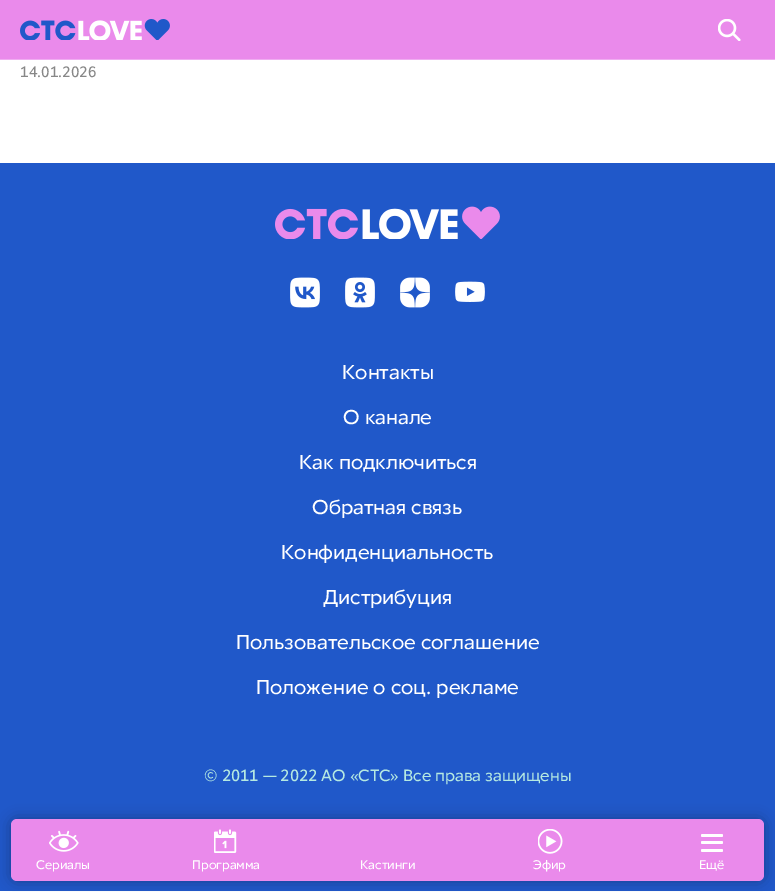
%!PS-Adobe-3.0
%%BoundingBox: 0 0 775 892
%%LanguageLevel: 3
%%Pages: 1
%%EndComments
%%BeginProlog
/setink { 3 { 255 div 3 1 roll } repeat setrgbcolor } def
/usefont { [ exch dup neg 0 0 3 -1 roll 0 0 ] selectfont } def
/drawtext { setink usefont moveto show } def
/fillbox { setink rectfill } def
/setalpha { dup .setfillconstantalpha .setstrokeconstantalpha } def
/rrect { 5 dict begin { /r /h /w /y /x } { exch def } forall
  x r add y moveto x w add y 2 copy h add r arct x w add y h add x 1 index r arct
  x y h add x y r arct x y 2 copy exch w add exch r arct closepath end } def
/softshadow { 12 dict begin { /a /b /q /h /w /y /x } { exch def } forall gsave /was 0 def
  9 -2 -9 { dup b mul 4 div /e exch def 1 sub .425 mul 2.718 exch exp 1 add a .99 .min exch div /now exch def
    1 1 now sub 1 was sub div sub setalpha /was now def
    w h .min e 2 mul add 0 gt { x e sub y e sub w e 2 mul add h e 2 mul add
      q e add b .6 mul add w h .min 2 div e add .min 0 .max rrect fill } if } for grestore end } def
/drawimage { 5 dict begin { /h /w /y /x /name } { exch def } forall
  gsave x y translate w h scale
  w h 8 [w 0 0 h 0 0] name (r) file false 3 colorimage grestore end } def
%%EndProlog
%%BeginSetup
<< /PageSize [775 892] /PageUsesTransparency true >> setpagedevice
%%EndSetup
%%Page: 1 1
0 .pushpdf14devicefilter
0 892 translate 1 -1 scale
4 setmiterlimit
0 0 775 892 255 255 255 fillbox
(14.01.2026) 20 77 /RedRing-Regular 15 135 135 135 drawtext
0 0 775 59 234 138 235 fillbox
0 59 775 1 240 173 241 fillbox
(assets/img1.rgb) 20 19 150 21 drawimage
(assets/img2.rgb) 718 19 23 22 drawimage
0 163 775 728 32 88 201 fillbox
0 0 0 setink
11 819 753 62 6 7 0.3 softshadow
234 138 235 setink
11 819 753 62 6 rrect fill
(assets/img3.rgb) 49 830 30 22 drawimage
(Сериалы) 36 869 /RedRing-Regular 12.5 255 255 255 drawtext
(assets/img4.rgb) 214 829 23 24 drawimage
(Программа) 192 869 /RedRing-Regular 12.5 255 255 255 drawtext
(Кастинги) 360 869 /RedRing-Regular 12.5 255 255 255 drawtext
(assets/img5.rgb) 538 829 25 25 drawimage
(Эфир) 533 869 /RedRing-Regular 12.5 255 255 255 drawtext
701 834 22 3 1.5 rrect fill
701 841 22 3 1.5 rrect fill
701 849 22 3 1.5 rrect fill
(Ещё) 699 869 /RedRing-Regular 12.5 255 255 255 drawtext
(assets/img6.rgb) 275 206 225 33 drawimage
(assets/img7.rgb) 290 277 30 31 drawimage
(assets/img8.rgb) 345 277 30 31 drawimage
(assets/img9.rgb) 400 277 30 31 drawimage
(assets/img10.rgb) 455 281 30 21 drawimage
(Контакты) 342 379 /RedRing-Regular 20 255 255 255 drawtext
(О канале) 343 424 /RedRing-Regular 20 255 255 255 drawtext
(Как подключиться) 299 469 /RedRing-Regular 20 255 255 255 drawtext
(Обратная связь) 312 514 /RedRing-Regular 20 255 255 255 drawtext
(Конфиденциальность) 281 559 /RedRing-Regular 20 255 255 255 drawtext
(Дистрибуция) 323 604 /RedRing-Regular 20 255 255 255 drawtext
(Пользовательское соглашение) 236 649 /RedRing-Regular 20 255 255 255 drawtext
(Положение о соц. рекламе) 256 694 /RedRing-Regular 20 255 255 255 drawtext
(© 2011 — 2022 АО «СТС» Все права защищены) 204 781 /RedRing-Regular 16.25 181 233 225 drawtext
.poppdf14devicefilter showpage
%%EOF
